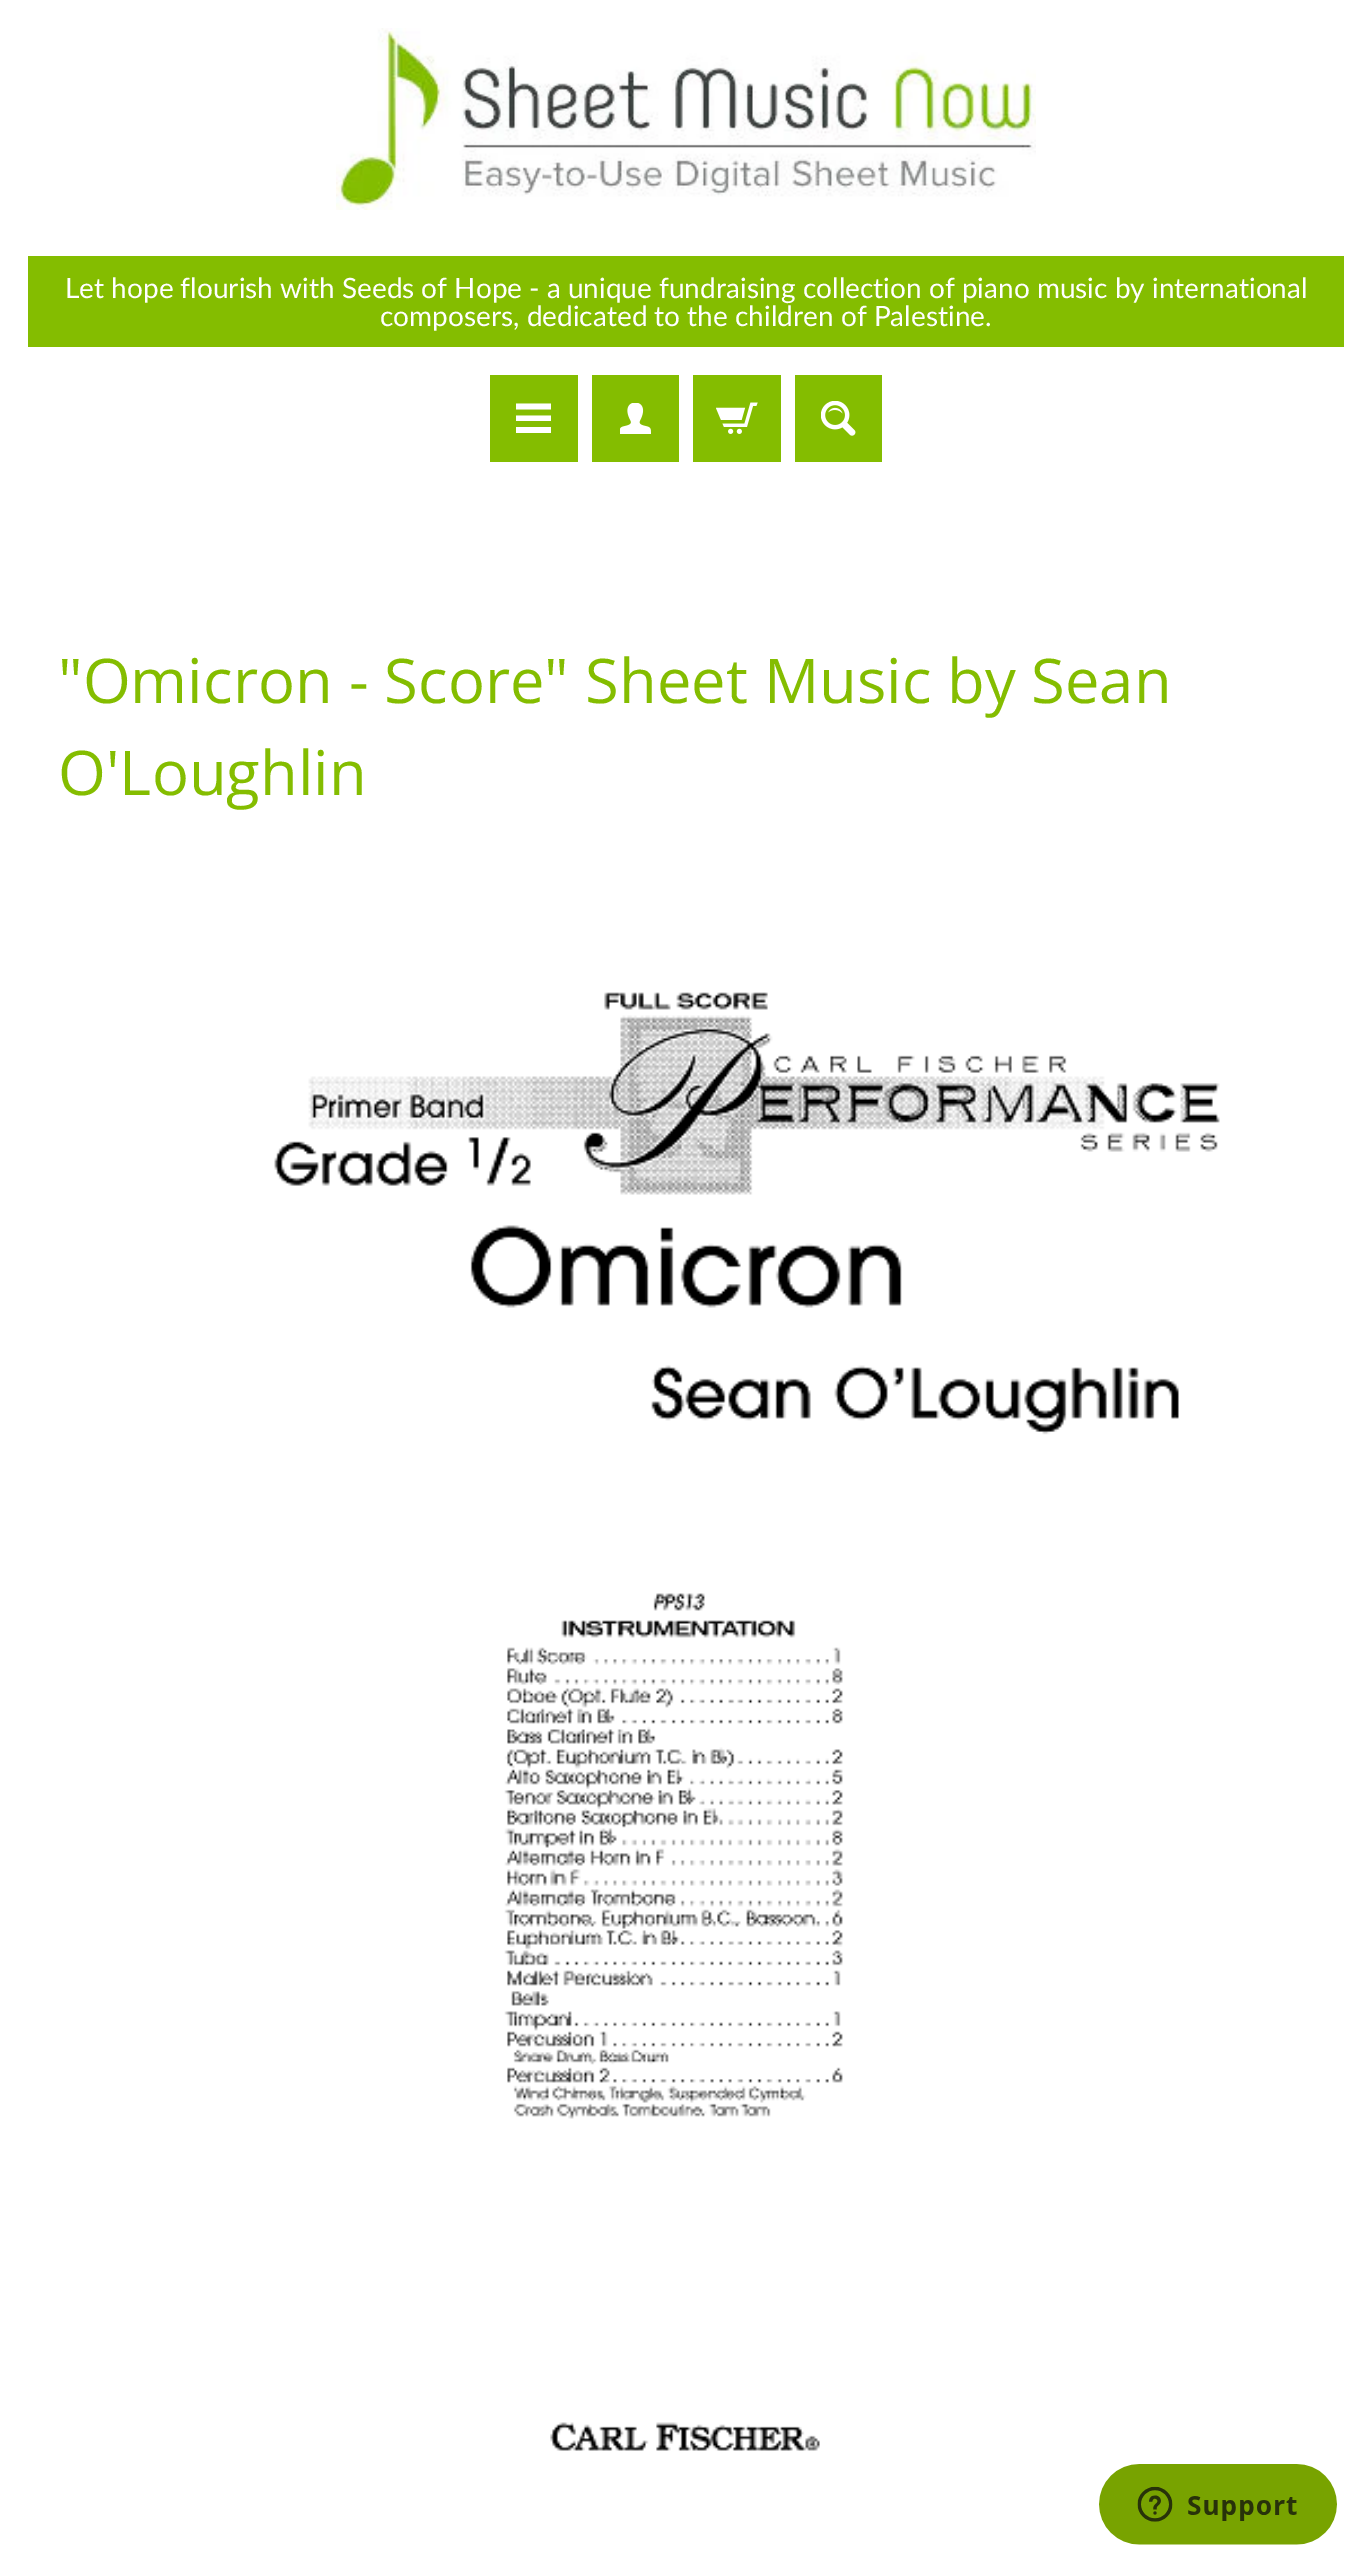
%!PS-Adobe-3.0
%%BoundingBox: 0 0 1371 2569
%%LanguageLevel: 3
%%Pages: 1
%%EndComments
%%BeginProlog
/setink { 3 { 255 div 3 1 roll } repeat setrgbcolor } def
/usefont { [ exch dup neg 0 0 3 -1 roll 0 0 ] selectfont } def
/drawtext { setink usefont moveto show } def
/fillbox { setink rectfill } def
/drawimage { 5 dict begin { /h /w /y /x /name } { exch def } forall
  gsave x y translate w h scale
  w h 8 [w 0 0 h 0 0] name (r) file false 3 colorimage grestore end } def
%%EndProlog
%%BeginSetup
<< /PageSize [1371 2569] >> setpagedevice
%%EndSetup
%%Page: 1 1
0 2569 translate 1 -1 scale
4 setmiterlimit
0 0 1371 2569 255 255 255 fillbox
(assets/img1.rgb) 336 28 700 182 drawimage
28 256 1316 91 132 189 0 fillbox
(Let hope flourish with Seeds of Hope - a unique fundraising collection of piano music by international) 65 298 /Lato-Regular 28 255 255 255 drawtext
(composers, dedicated to the children of Palestine.) 380 326 /Lato-Regular 28 255 255 255 drawtext
490 375 88 87 132 189 0 fillbox
255 255 255 setink
551 409.5 moveto 516 409.5 lineto 516 403.5 lineto 551 403.5 lineto closepath 551 415.5 moveto 516 415.5 lineto 516 421 lineto 551 421 lineto closepath 551 427 moveto 516 427 lineto 516 433 lineto 551 433 lineto closepath fill
592 375 87 87 132 189 0 fillbox
(assets/img2.rgb) 620 403 31 31 drawimage
693 375 88 87 132 189 0 fillbox
(assets/img3.rgb) 716 402 42 32 drawimage
795 375 87 87 132 189 0 fillbox
(assets/img4.rgb) 821 401 35 35 drawimage
("Omicron - Score" Sheet Music by) 58 703 /OpenSans-Regular 61.6 132 189 0 drawtext
(Sean) 1031 703 /OpenSans-Regular 61.6 132 189 0 drawtext
(O'Loughlin) 58 795 /OpenSans-Regular 61.6 132 189 0 drawtext
(assets/img5.rgb) 274 992 946 1459 drawimage
(assets/img6.rgb) 1099 2464 238 81 drawimage
showpage
%%EOF
